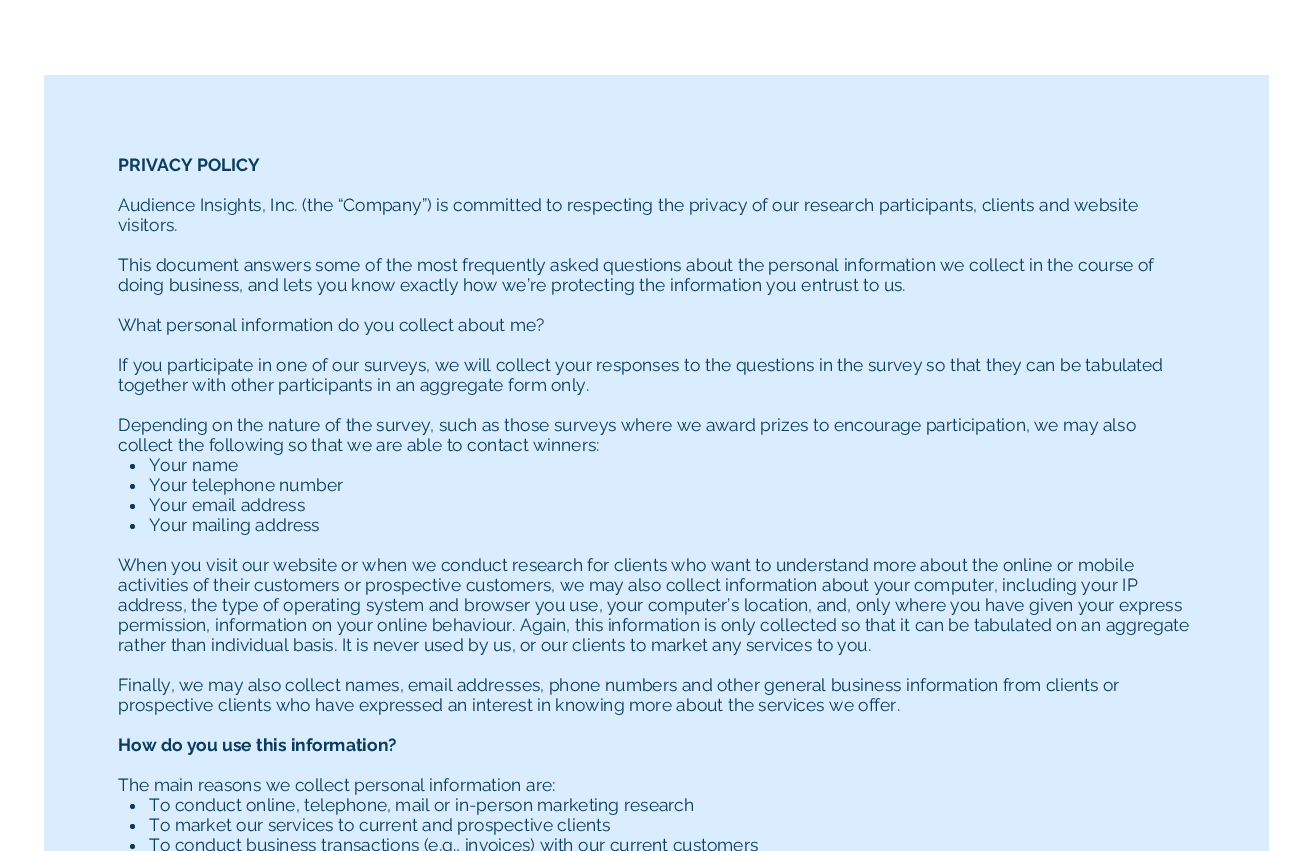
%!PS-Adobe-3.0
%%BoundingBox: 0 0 1312 851
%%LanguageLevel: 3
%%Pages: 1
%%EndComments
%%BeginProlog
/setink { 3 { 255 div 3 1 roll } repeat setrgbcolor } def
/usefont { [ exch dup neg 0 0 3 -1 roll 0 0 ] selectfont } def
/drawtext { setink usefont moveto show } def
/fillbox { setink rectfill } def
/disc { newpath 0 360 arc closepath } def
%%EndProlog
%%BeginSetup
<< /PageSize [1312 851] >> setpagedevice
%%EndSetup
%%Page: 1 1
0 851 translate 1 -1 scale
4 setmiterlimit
0 0 1312 851 255 255 255 fillbox
44 75 1225 776 218 237 255 fillbox
(PRIVACY POLICY) 118 171 /Raleway-Bold 17.5 12 60 96 drawtext
(Audience Insights, Inc. \(the “Company”\) is committed to respecting the privacy of our research participants, clients and website) 118 211 /Raleway-Regular 17.5 12 60 96 drawtext
(visitors.) 118 231 /Raleway-Regular 17.5 12 60 96 drawtext
(This document answers some of the most frequently asked questions about the personal information we collect in the course of) 118 271 /Raleway-Regular 17.5 12 60 96 drawtext
(doing business, and lets you know exactly how we’re protecting the information you entrust to us.) 118 291 /Raleway-Regular 17.5 12 60 96 drawtext
(What personal information do you collect about me?) 118 331 /Raleway-Regular 17.5 12 60 96 drawtext
(If you participate in one of our surveys, we will collect your responses to the questions in the survey so that they can be tabulated) 118 371 /Raleway-Regular 17.5 12 60 96 drawtext
(together with other participants in an aggregate form only.) 118 391 /Raleway-Regular 17.5 12 60 96 drawtext
(Depending on the nature of the survey, such as those surveys where we award prizes to encourage participation, we may also) 118 431 /Raleway-Regular 17.5 12 60 96 drawtext
(collect the following so that we are able to contact winners:) 118 451 /Raleway-Regular 17.5 12 60 96 drawtext
132.5 466.5 2.5 disc fill
(Your name) 149 471 /Raleway-Regular 17.5 12 60 96 drawtext
132.5 486.5 2.5 disc fill
(Your telephone number) 149 491 /Raleway-Regular 17.5 12 60 96 drawtext
132.5 506.5 2.5 disc fill
(Your email address) 149 511 /Raleway-Regular 17.5 12 60 96 drawtext
132.5 526.5 2.5 disc fill
(Your mailing address) 149 531 /Raleway-Regular 17.5 12 60 96 drawtext
(When you visit our website or when we conduct research for clients who want to understand more about the online or mobile) 118 571 /Raleway-Regular 17.5 12 60 96 drawtext
(activities of their customers or prospective customers, we may also collect information about your computer, including your IP) 118 591 /Raleway-Regular 17.5 12 60 96 drawtext
(address, the type of operating system and browser you use, your computer’s location, and, only where you have given your express) 118 611 /Raleway-Regular 17.5 12 60 96 drawtext
(permission, information on your online behaviour. Again, this information is only collected so that it can be tabulated on an aggregate) 118 631 /Raleway-Regular 17.5 12 60 96 drawtext
(rather than individual basis. It is never used by us, or our clients to market any services to you.) 118 651 /Raleway-Regular 17.5 12 60 96 drawtext
(Finally, we may also collect names, email addresses, phone numbers and other general business information from clients or) 118 691 /Raleway-Regular 17.5 12 60 96 drawtext
(prospective clients who have expressed an interest in knowing more about the services we offer.) 118 711 /Raleway-Regular 17.5 12 60 96 drawtext
(How do you use this information?) 118 751 /Raleway-Bold 17.5 12 60 96 drawtext
(The main reasons we collect personal information are:) 118 791 /Raleway-Regular 17.5 12 60 96 drawtext
132.5 806.5 2.5 disc fill
(To conduct online, telephone, mail or in-person marketing research) 149 811 /Raleway-Regular 17.5 12 60 96 drawtext
132.5 826.5 2.5 disc fill
(To market our services to current and prospective clients) 149 831 /Raleway-Regular 17.5 12 60 96 drawtext
132.5 846.5 2.5 disc fill
(To conduct business transactions \(e.g., invoices\) with our current customers) 149 851 /Raleway-Regular 17.5 12 60 96 drawtext
showpage
%%EOF
